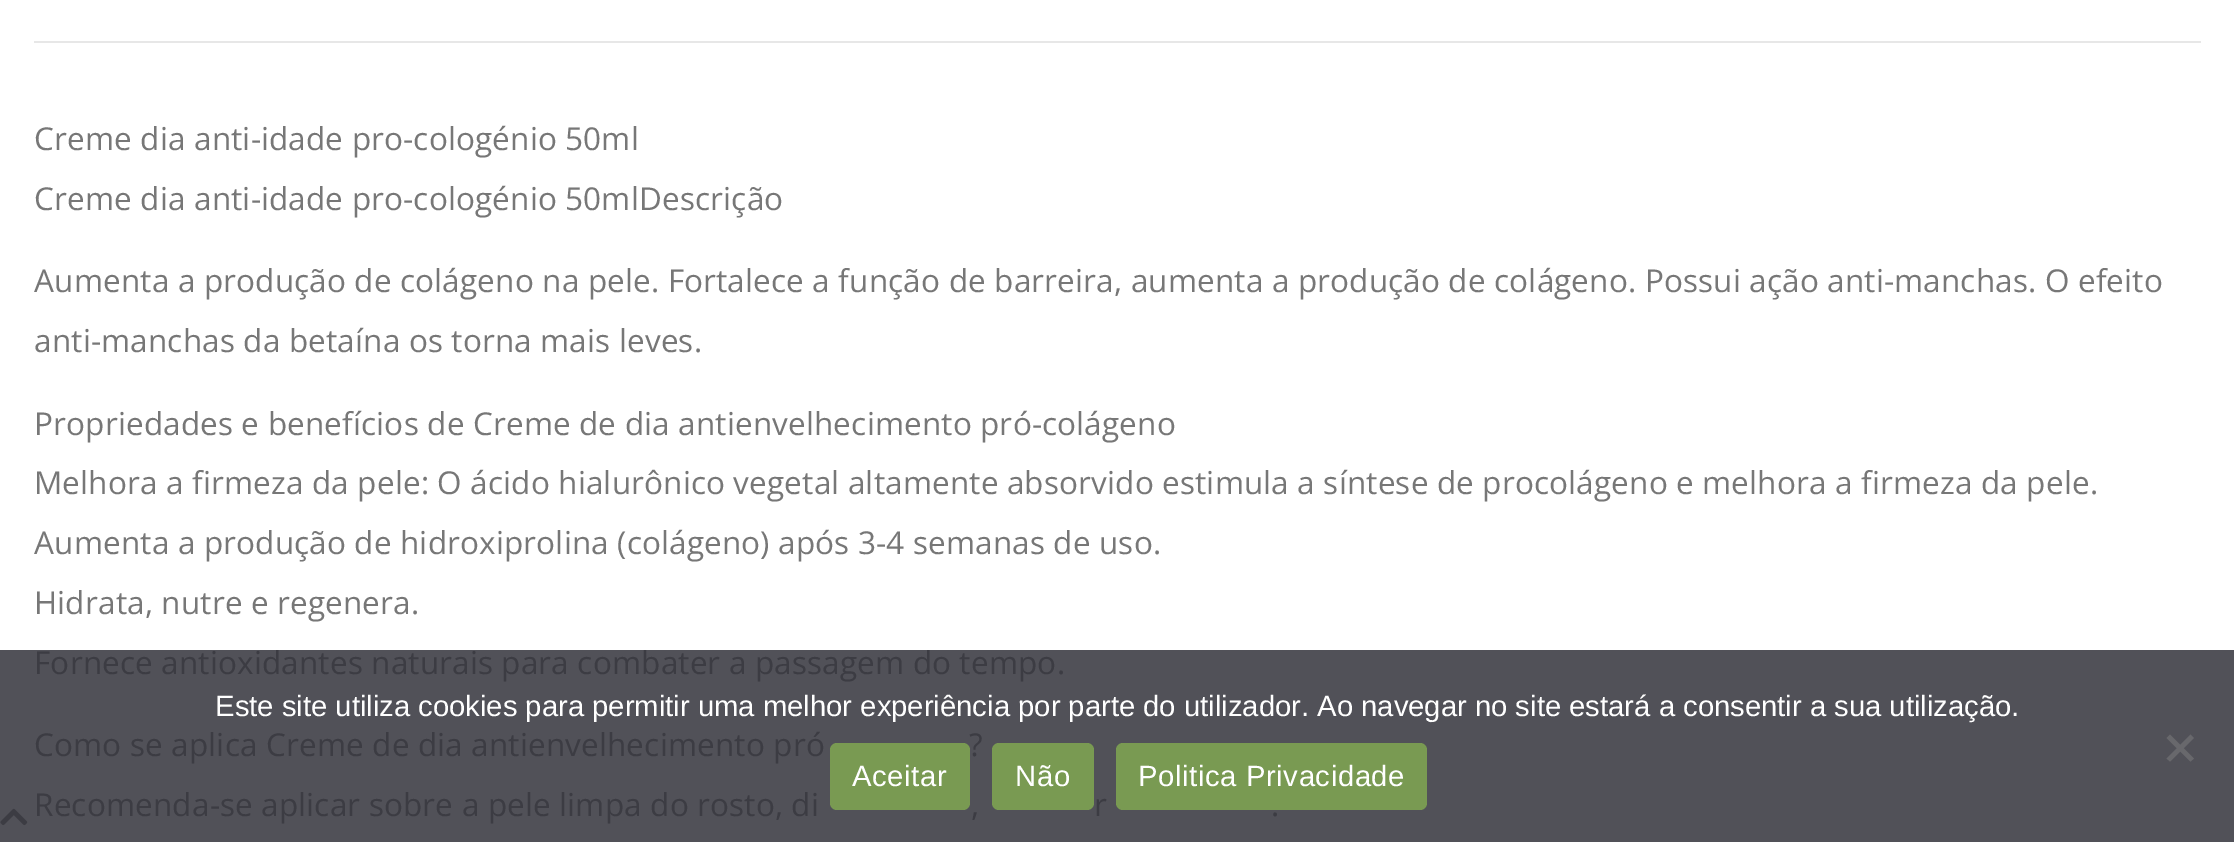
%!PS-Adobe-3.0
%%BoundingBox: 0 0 2234 842
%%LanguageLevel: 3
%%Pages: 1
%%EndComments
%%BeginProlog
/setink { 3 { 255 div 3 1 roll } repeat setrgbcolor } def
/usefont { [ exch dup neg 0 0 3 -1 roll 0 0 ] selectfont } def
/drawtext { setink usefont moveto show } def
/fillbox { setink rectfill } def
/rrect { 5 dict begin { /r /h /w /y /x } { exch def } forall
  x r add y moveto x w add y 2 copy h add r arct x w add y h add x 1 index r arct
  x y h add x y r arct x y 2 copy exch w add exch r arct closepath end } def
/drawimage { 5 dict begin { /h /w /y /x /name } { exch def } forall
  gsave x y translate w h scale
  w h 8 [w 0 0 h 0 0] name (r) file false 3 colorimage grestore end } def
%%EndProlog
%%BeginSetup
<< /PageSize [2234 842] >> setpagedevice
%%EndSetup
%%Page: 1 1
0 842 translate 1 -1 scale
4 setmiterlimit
0 0 2234 842 255 255 255 fillbox
0 650 2234 192 81 81 88 fillbox
34 41 2167 2 231 231 231 fillbox
/OpenSans-Regular 31.5 usefont
119 119 119 setink
34 150 moveto 0.16 0 (Creme dia anti-idade pro-cologénio 50ml) ashow
34 210 moveto 0.16 0 (Creme dia anti-idade pro-cologénio 50mlDescrição) ashow
34 292 moveto 0.16 0 (Aumenta a produção de colágeno na pele. Fortalece a função de barreira, aumenta a produção de colágeno. Possui ação anti-manchas. O efeito) ashow
34 352 moveto 0.16 0 (anti-manchas da betaína os torna mais leves.) ashow
34 435 moveto 0.16 0 (Propriedades e benefícios de Creme de dia antienvelhecimento pró-colágeno) ashow
34 494 moveto 0.16 0 (Melhora a firmeza da pele: O ácido hialurônico vegetal altamente absorvido estimula a síntese de procolágeno e melhora a firmeza da pele.) ashow
34 554 moveto 0.16 0 (Aumenta a produção de hidroxiprolina \(colágeno\) após 3-4 semanas de uso.) ashow
34 614 moveto 0.16 0 (Hidrata, nutre e regenera.) ashow
60 60 67 setink
34 674 moveto 0.16 0 (Fornece antioxidantes naturais para combater a passagem do tempo.) ashow
34 756 moveto 0.16 0 (Como se aplica Creme de dia antienvelhecimento pró) ashow
969 756 moveto 0.16 0 (?) ashow
34 816 moveto 0.16 0 (Recomenda-se aplicar sobre a pele limpa do rosto, di) ashow
971 816 moveto 0.16 0 (,) ashow
1094 816 moveto 0.16 0 (r) ashow
1271 816 moveto 0.16 0 (.) ashow
(Este site utiliza cookies para permitir uma melhor experiência por parte do utilizador. Ao navegar no site estará a consentir a sua utilização.) 215 716 /LiberationSans-Regular 29.25 255 255 255 drawtext
104 104 108 setink
2190.5 734.5 moveto 2194 738 lineto 2170 761.5 lineto 2166.5 758.5 lineto closepath fill
2166.5 738 moveto 2170 734.5 lineto 2194 758.5 lineto 2190.5 761.5 lineto closepath fill
121 154 82 setink
830 743 140 67 7 rrect fill
255 255 255 setink
852 786 moveto 0.6 0 (Aceitar) ashow
121 154 82 setink
992 743 102 67 7 rrect fill
255 255 255 setink
1015 786 moveto 0.6 0 (Não) ashow
121 154 82 setink
1116 743 311 67 7 rrect fill
255 255 255 setink
1138 786 moveto 0.6 0 (Politica Privacidade) ashow
(assets/img1.rgb) 0 808 28 18 drawimage
showpage
%%EOF
